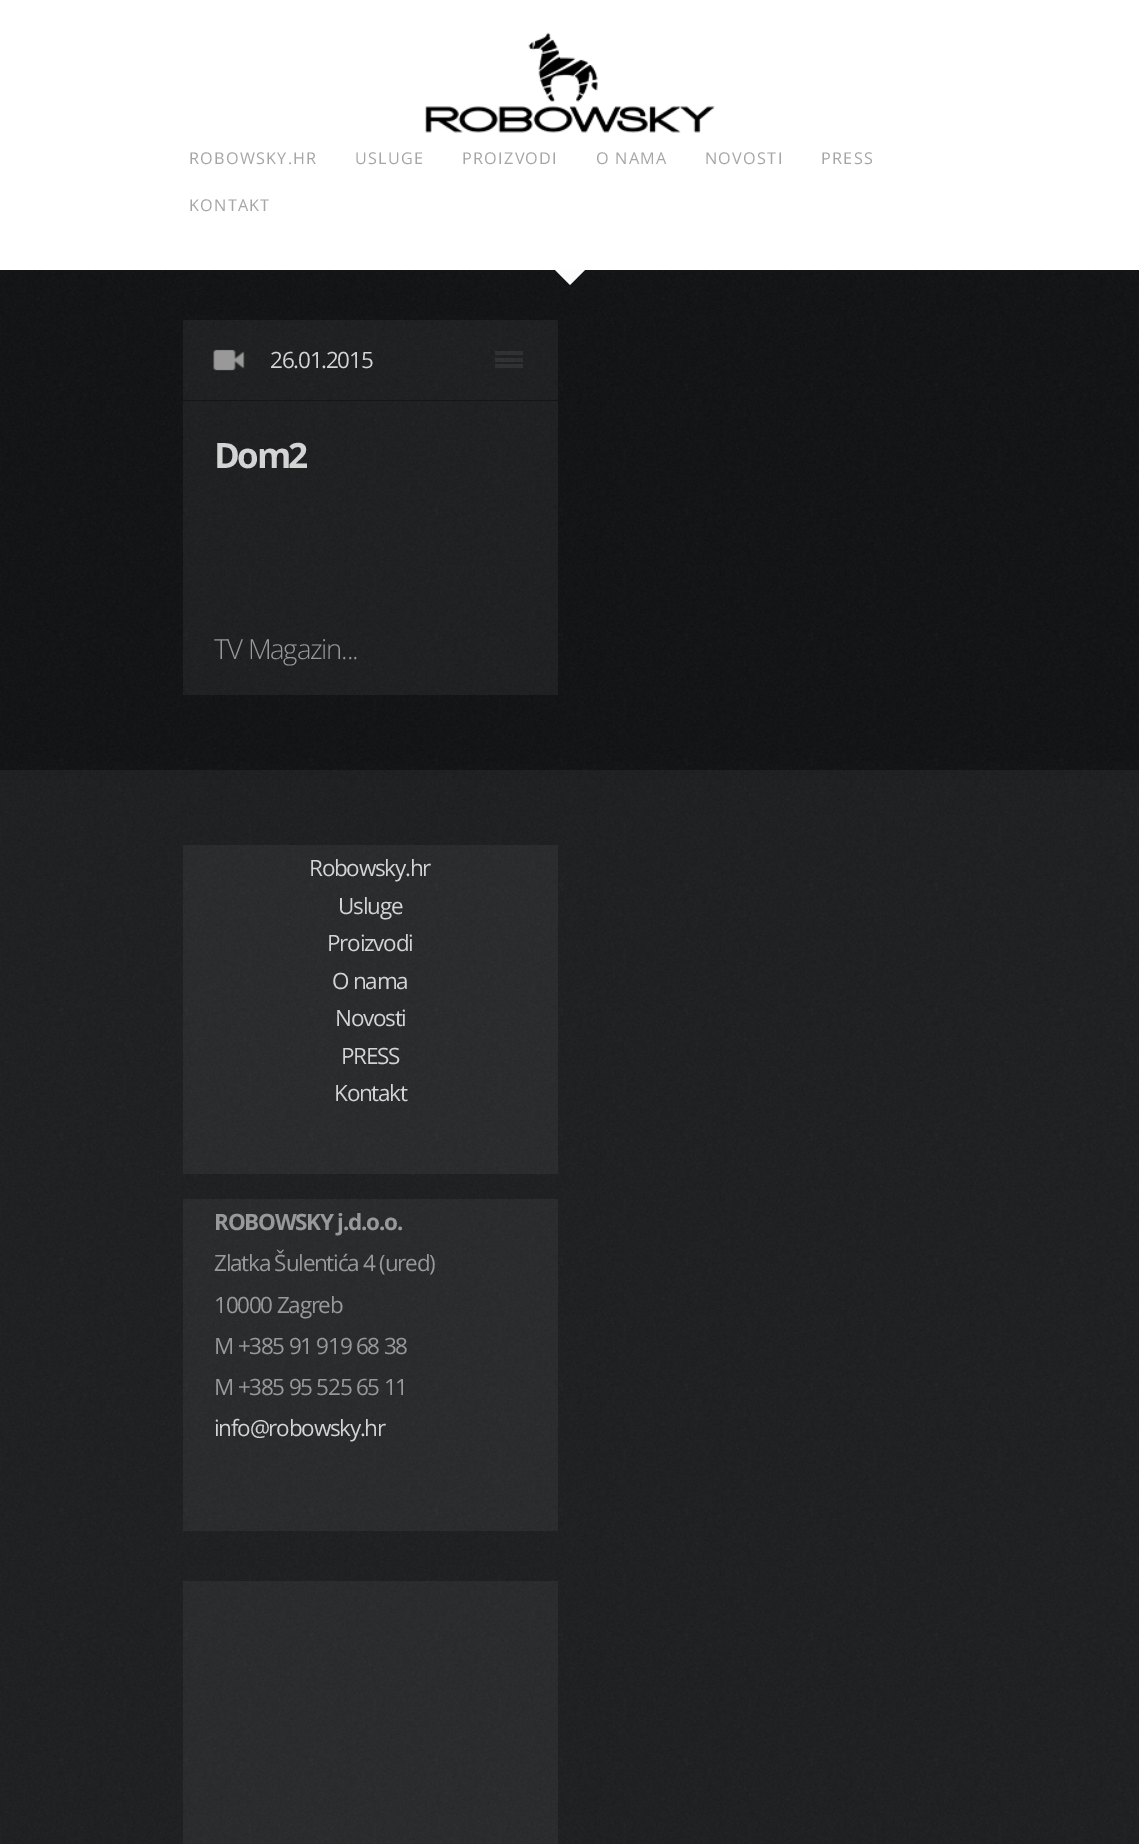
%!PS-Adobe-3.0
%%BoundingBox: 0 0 1139 1844
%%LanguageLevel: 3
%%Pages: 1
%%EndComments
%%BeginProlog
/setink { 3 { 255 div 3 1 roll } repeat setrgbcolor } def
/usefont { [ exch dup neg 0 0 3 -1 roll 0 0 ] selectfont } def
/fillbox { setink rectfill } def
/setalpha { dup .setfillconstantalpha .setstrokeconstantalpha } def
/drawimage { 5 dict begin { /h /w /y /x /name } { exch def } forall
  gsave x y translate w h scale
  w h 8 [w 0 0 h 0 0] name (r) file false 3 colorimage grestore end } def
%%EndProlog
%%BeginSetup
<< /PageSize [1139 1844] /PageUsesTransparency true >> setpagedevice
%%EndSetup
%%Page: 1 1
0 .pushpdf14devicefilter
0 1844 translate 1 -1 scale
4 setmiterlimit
0 0 1139 1844 255 255 255 fillbox
(assets/img1.rgb) 0 270 1139 1574 drawimage
(assets/img2.rgb) 425 32 290 101 drawimage
/OpenSans-Regular 16.25 usefont
165 165 165 setink
189 164 moveto 1.25 0 (ROBOWSKY.HR) ashow
355 164 moveto 1.25 0 (USLUGE) ashow
462 164 moveto 1.25 0 (PROIZVODI) ashow
596 164 moveto 1.25 0 (O NAMA) ashow
705 164 moveto 1.25 0 (NOVOSTI) ashow
821 164 moveto 1.25 0 (PRESS) ashow
189 211 moveto 1.25 0 (KONTAKT) ashow
251 251 251 setink
555 270 moveto 585 270 lineto 570 285 lineto closepath fill
0.05 setalpha
183 320 375 375 255 255 255 fillbox
1 setalpha
183 400 375 1 21 22 24 fillbox
(assets/img3.rgb) 213 349 32 22 drawimage
/OpenSans-Regular 22.5 usefont
212 212 212 setink
270 368 moveto -1.25 0 (26.01.2015) ashow
0.07 setalpha
495 351 28 4 255 255 255 fillbox
495 358 28 4 255 255 255 fillbox
495 364 28 4 255 255 255 fillbox
/OpenSans-Bold 35 usefont
1 setalpha
212 212 212 setink
214 468 moveto -2.5 0 (Dom2) ashow
/OpenSans-Light 27.5 usefont
153 153 153 setink
214 659 moveto -1.25 0 (TV Magazin...) ashow
0.05 setalpha
0 770 1139 1074 255 255 255 fillbox
183 845 375 329 255 255 255 fillbox
/OpenSans-Regular 22.5 usefont
1 setalpha
212 212 212 setink
309 876 moveto -1.25 0 (Robowsky.hr) ashow
338 914 moveto -1.25 0 (Usluge) ashow
327 951 moveto -1.25 0 (Proizvodi) ashow
332 989 moveto -1.25 0 (O nama) ashow
335 1026 moveto -1.25 0 (Novosti) ashow
341 1064 moveto -1.25 0 (PRESS) ashow
334 1101 moveto -1.25 0 (Kontakt) ashow
0.05 setalpha
183 1199 375 332 255 255 255 fillbox
/OpenSans-Bold 22.5 usefont
1 setalpha
153 153 153 setink
214 1230 moveto -1.25 0 (ROBOWSKY j.d.o.o.) ashow
/OpenSans-Regular 22.5 usefont
214 1271 moveto -1.25 0 (Zlatka Šulentića 4 \(ured\)) ashow
214 1313 moveto -1.25 0 (10000 Zagreb) ashow
214 1354 moveto -1.25 0 (M +385 91 919 68 38) ashow
214 1395 moveto -1.25 0 (M +385 95 525 65 11) ashow
212 212 212 setink
214 1436 moveto -1.25 0 (info@robowsky.hr) ashow
0.05 setalpha
183 1581 375 263 255 255 255 fillbox
.poppdf14devicefilter showpage
%%EOF
